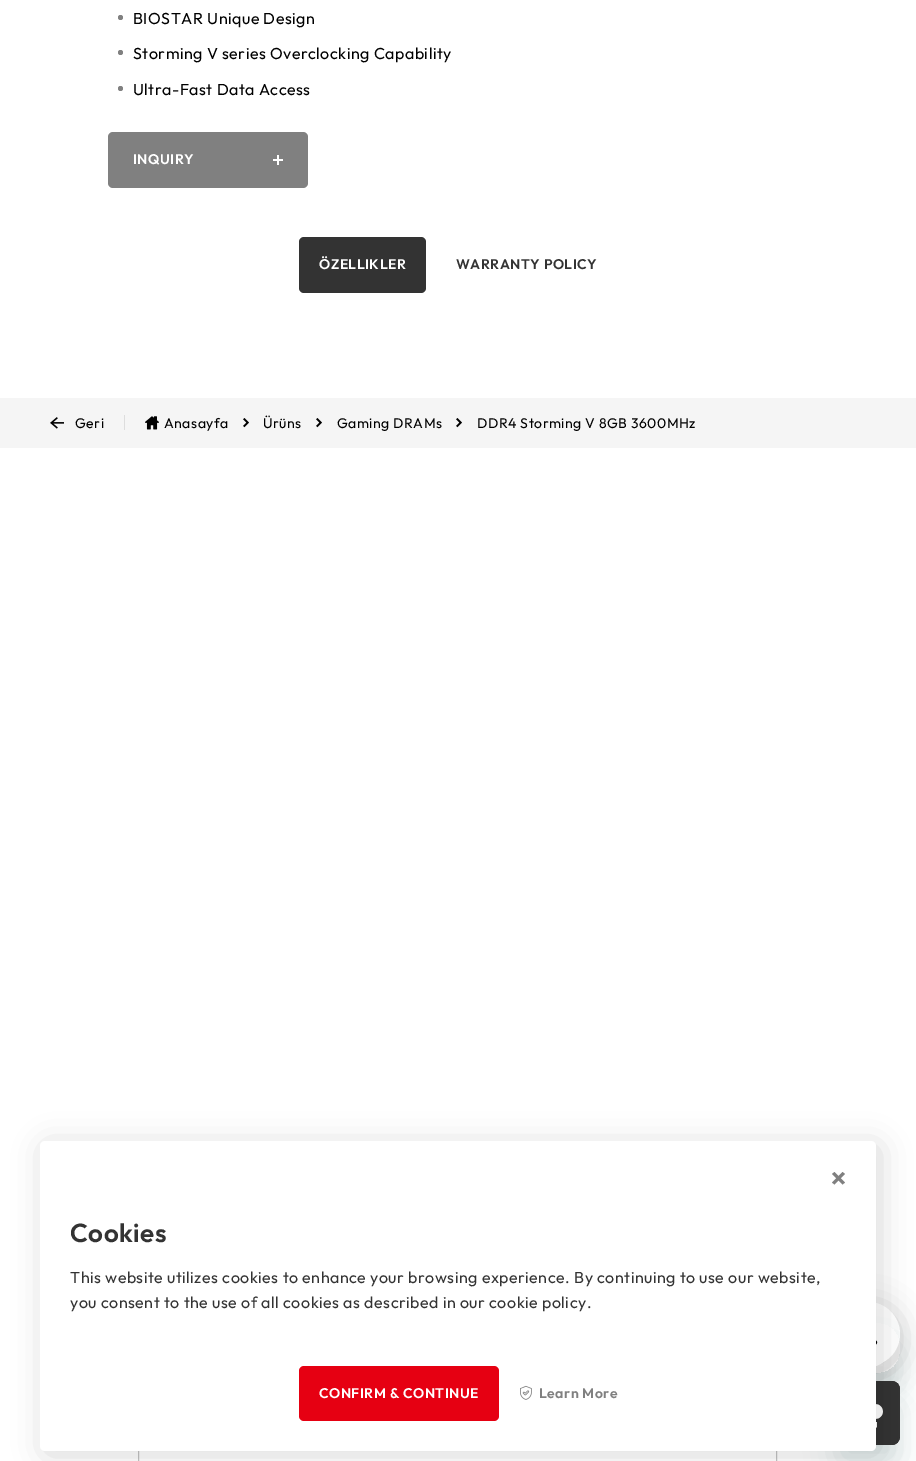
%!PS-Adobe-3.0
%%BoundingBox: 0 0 916 1461
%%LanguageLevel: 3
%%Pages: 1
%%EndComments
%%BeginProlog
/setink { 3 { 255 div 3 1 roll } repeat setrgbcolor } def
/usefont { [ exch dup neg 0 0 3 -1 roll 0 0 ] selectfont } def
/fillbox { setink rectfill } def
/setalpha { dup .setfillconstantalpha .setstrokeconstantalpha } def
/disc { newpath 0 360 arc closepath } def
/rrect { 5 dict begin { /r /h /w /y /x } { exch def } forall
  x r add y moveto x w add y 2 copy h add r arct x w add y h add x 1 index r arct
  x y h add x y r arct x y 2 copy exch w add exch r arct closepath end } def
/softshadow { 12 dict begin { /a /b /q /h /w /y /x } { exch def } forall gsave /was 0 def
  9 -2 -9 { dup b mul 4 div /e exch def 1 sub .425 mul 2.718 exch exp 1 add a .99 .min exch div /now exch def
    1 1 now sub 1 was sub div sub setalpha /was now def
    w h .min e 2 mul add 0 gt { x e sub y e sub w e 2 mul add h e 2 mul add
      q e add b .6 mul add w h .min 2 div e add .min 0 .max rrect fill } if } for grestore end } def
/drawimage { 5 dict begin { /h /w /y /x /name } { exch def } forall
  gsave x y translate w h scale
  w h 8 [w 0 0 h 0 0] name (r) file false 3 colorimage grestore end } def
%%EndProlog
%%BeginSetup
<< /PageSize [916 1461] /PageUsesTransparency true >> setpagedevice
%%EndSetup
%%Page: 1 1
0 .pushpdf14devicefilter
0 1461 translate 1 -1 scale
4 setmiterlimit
0 0 916 1461 255 255 255 fillbox
128 128 128 setink
120.5 17.5 2.5 disc fill
/Outfit-Regular 16 usefont
0 0 0 setink
133 24 moveto 0.5 0 (BIOSTAR Unique Design) ashow
128 128 128 setink
120.5 52.5 2.5 disc fill
0 0 0 setink
133 59 moveto 0.5 0 (Storming V series Overclocking Capability) ashow
128 128 128 setink
120.5 88.5 2.5 disc fill
0 0 0 setink
133 95 moveto 0.5 0 (Ultra-Fast Data Access) ashow
128 128 128 setink
108 132 200 56 5 rrect fill
/Outfit-SemiBold 14 usefont
255 255 255 setink
133 164 moveto 0.5 0 (INQUIRY) ashow
273 159 10 2 255 255 255 fillbox
277 155 2 10 255 255 255 fillbox
51 51 51 setink
299 237 127 56 5 rrect fill
255 255 255 setink
319 269 moveto 0.5 0 (ÖZELLIKLER) ashow
51 51 51 setink
456 269 moveto 0.5 0 (WARRANTY POLICY) ashow
0 398 916 50 245 245 245 fillbox
(assets/img1.rgb) 50 417 14 12 drawimage
/Outfit-Regular 14 usefont
0 0 0 setink
75 428 moveto 0.5 0 (Geri) ashow
124 415 1 15 221 221 221 fillbox
(assets/img2.rgb) 145 416 14 14 drawimage
0 0 0 setink
164 428 moveto 0.5 0 (Anasayfa) ashow
(assets/img3.rgb) 243 418 6 10 drawimage
263 428 moveto 0.5 0 (Ürüns) ashow
(assets/img3.rgb) 316 418 6 10 drawimage
337 428 moveto 0.5 0 (Gaming DRAMs) ashow
(assets/img3.rgb) 456 418 6 10 drawimage
477 428 moveto 0.5 0 (DDR4 Storming V 8GB 3600MHz) ashow
194 194 194 setink
138.5 1158.5 638 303 rectstroke
0 0 0 setink
836 1307 64 64 32 15 0.2 softshadow
255 255 255 setink
868 1334 32 disc fill
gsave
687 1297 moveto 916 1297 lineto 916 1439 lineto 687 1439 lineto closepath 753 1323 moveto 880 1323 lineto 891 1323 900 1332 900 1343 curveto 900 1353 lineto 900 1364 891 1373 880 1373 curveto 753 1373 lineto 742 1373 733 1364 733 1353 curveto 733 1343 lineto 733 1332 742 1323 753 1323 curveto closepath eoclip newpath
23 73 77 setink
733 1343 167 50 20 15 0.15 softshadow
grestore
(assets/img5.rgb) 876 1324 7 42 drawimage
23 73 77 setink
836 1401 64 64 8 15 0.15 softshadow
(assets/img6.rgb) 876 1381 24 64 drawimage
0 0 0 setink
44 1145 836 310 5 15 0.15 softshadow
255 255 255 setink
40 1141 836 310 5 rrect fill
128 128 128 setink
834.5 1172 moveto 845 1182.5 lineto 842.5 1184.5 lineto 832 1174 lineto closepath fill
842.5 1172 moveto 845 1174 lineto 834.5 1184.5 lineto 832 1182.5 lineto closepath fill
/Outfit-SemiBold 26 usefont
51 51 51 setink
70 1242 moveto 0.5 0 (Cookies) ashow
/Outfit-Regular 16 usefont
70 1283 moveto 0.5 0 (This website utilizes cookies to enhance your browsing experience. By continuing to use our website,) ashow
70 1308 moveto 0.5 0 (you consent to the use of all cookies as described in our cookie policy.) ashow
230 0 18 setink
299 1366 200 55 5 rrect fill
/Outfit-SemiBold 14 usefont
255 255 255 setink
319 1398 moveto 0.5 0 (CONFIRM & CONTINUE) ashow
(assets/img4.rgb) 520 1385 12 15 drawimage
128 128 128 setink
539 1398 moveto 0.5 0 (Learn More) ashow
.poppdf14devicefilter showpage
%%EOF
